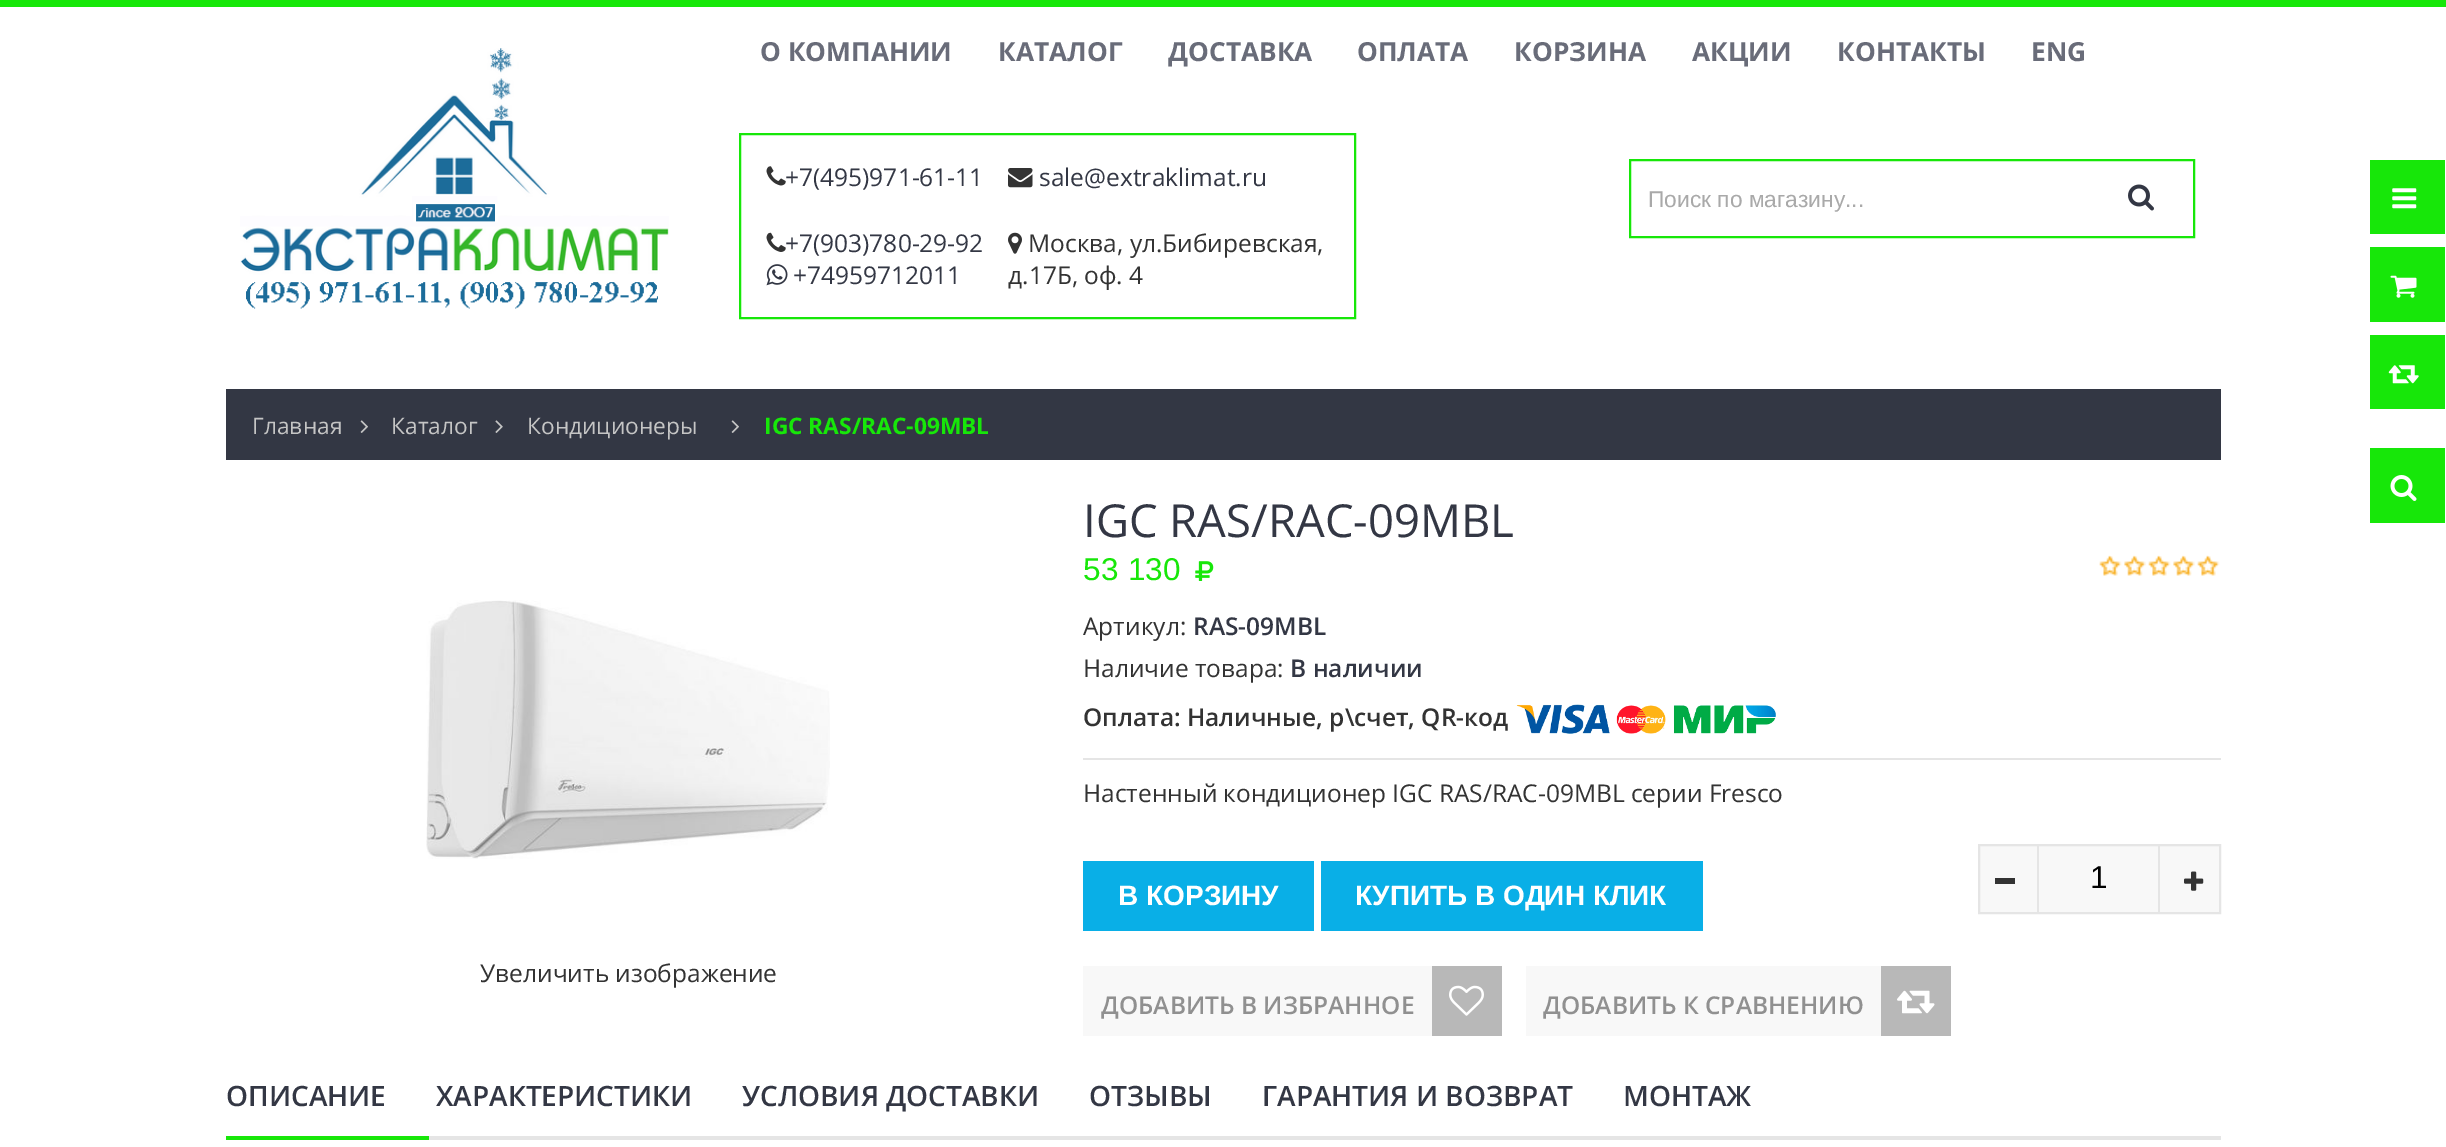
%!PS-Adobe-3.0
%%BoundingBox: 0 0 2446 1147
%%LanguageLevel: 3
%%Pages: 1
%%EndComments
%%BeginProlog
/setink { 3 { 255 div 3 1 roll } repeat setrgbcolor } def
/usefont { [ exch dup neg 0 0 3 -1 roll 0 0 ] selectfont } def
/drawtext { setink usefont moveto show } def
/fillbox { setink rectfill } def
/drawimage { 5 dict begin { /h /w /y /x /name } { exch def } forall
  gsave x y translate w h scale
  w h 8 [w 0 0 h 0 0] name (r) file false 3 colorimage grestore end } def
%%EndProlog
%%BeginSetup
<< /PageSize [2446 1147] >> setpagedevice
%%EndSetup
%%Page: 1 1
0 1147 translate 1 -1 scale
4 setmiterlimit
0 0 2446 1147 255 255 255 fillbox
0 0 2446 7 23 231 9 fillbox
(assets/img1.rgb) 240 48 429 261 drawimage
(О КОМПАНИИ) 760 61 /OpenSans-Bold 26.25 105 108 121 drawtext
(КАТАЛОГ) 998 61 /OpenSans-Bold 26.25 105 108 121 drawtext
(ДОСТАВКА) 1168 61 /OpenSans-Bold 26.25 105 108 121 drawtext
(ОПЛАТА) 1357 61 /OpenSans-Bold 26.25 105 108 121 drawtext
(КОРЗИНА) 1514 61 /OpenSans-Bold 26.25 105 108 121 drawtext
(АКЦИИ) 1692 61 /OpenSans-Bold 26.25 105 108 121 drawtext
(КОНТАКТЫ) 1837 61 /OpenSans-Bold 26.25 105 108 121 drawtext
(ENG) 2031 61 /OpenSans-Bold 26.25 105 108 121 drawtext
23 231 9 setink
2 setlinewidth
740 134 615 184 rectstroke
(assets/img2.rgb) 766 166 20 20 drawimage
(+7\(495\)971-61-11) 785 186 /OpenSans-Regular 24.5 51 55 68 drawtext
(assets/img3.rgb) 766 232 20 20 drawimage
(+7\(903\)780-29-92) 785 252 /OpenSans-Regular 24.5 51 55 68 drawtext
(assets/img4.rgb) 766 264 22 22 drawimage
(+74959712011) 793 284 /OpenSans-Regular 24.5 51 55 68 drawtext
(assets/img5.rgb) 1008 168 25 20 drawimage
(sale@extraklimat.ru) 1039 186 /OpenSans-Regular 24.5 51 55 68 drawtext
(assets/img6.rgb) 1008 232 14 22 drawimage
(Москва, ул.Бибиревская,) 1028 252 /OpenSans-Regular 24.5 51 51 51 drawtext
(д.17Б, оф. 4) 1008 284 /OpenSans-Regular 24.5 51 51 51 drawtext
23 231 9 setink
1630 160 564 77 rectstroke
(Поиск по магазину...) 1648 207 /LiberationSans-Regular 22.75 169 169 169 drawtext
(assets/img7.rgb) 2128 184 26 27 drawimage
2370 160 75 74 23 231 9 fillbox
(assets/img8.rgb) 2392 188 25 21 drawimage
2370 247 75 75 23 231 9 fillbox
(assets/img9.rgb) 2390 275 27 23 drawimage
2370 335 75 74 23 231 9 fillbox
(assets/img10.rgb) 2388 365 31 19 drawimage
2370 448 75 75 23 231 9 fillbox
(assets/img11.rgb) 2390 475 27 26 drawimage
226 389 1995 71 51 55 68 fillbox
(Главная) 252 434 /OpenSans-Regular 22.75 197 197 197 drawtext
(assets/img12.rgb) 360 420 8 13 drawimage
(Каталог) 391 434 /OpenSans-Regular 22.75 197 197 197 drawtext
(assets/img13.rgb) 495 420 8 13 drawimage
(Кондиционеры) 527 434 /OpenSans-Regular 22.75 197 197 197 drawtext
(assets/img12.rgb) 731 420 8 13 drawimage
(IGC RAS/RAC-09MBL) 764 434 /OpenSans-Bold 22.75 23 231 9 drawtext
(assets/img14.rgb) 426 600 404 259 drawimage
(Увеличить изображение) 480 982 /OpenSans-Regular 24.5 51 51 51 drawtext
(IGC RAS/RAC-09MBL) 1083 537 /OpenSans-Regular 45.5 51 55 68 drawtext
/LiberationSans-Regular 31.5 usefont
23 231 9 setink
1083 580 moveto 0.25 0 (53 130) ashow
(assets/img15.rgb) 1195 561 19 20 drawimage
(assets/img16.rgb) 2099 555 121 21 drawimage
(Артикул:) 1083 635 /OpenSans-Regular 24.5 51 51 51 drawtext
(RAS-09MBL) 1193 635 /OpenSans-SemiBold 24.5 51 55 68 drawtext
(Наличие товара:) 1083 677 /OpenSans-Regular 24.5 51 51 51 drawtext
(В наличии) 1290 677 /OpenSans-SemiBold 24.5 51 55 68 drawtext
(Оплата: Наличные, р\\счет, QR-код) 1083 726 /OpenSans-SemiBold 24.5 51 51 51 drawtext
(assets/img17.rgb) 1516 704 260 30 drawimage
1083 758 1138 2 229 229 229 fillbox
(Настенный кондиционер IGC RAS/RAC-09MBL серии Fresco) 1083 802 /OpenSans-Regular 24.5 51 51 51 drawtext
248 248 248 setink
1979 845 moveto 2220 845 lineto 2220 913 lineto 1979 913 lineto closepath gsave fill grestore
229 229 229 setink
stroke
1995 878 20 6 51 51 51 fillbox
2158 845 2 67 229 229 229 fillbox
2037 845 2 67 229 229 229 fillbox
(1) 2090 888 /LiberationSans-Regular 31.5 0 0 0 drawtext
(assets/img18.rgb) 2184 871 20 20 drawimage
1083 861 231 70 9 175 231 fillbox
(В КОРЗИНУ) 1118 905 /LiberationSans-Bold 28 255 255 255 drawtext
1321 861 382 70 9 175 231 fillbox
(КУПИТЬ В ОДИН КЛИК) 1355 905 /LiberationSans-Bold 28 255 255 255 drawtext
1083 966 349 70 248 248 248 fillbox
(ДОБАВИТЬ В ИЗБРАННОЕ) 1101 1014 /OpenSans-SemiBold 24.5 144 144 144 drawtext
1432 966 70 70 184 184 184 fillbox
(assets/img19.rgb) 1449 985 35 31 drawimage
1526 966 355 70 248 248 248 fillbox
(ДОБАВИТЬ К СРАВНЕНИЮ) 1543 1014 /OpenSans-SemiBold 24.5 144 144 144 drawtext
1881 966 70 70 184 184 184 fillbox
(assets/img20.rgb) 1897 990 38 24 drawimage
(ОПИСАНИЕ) 226 1106 /OpenSans-SemiBold 28 51 55 68 drawtext
226 1136 203 4 23 231 9 fillbox
(ХАРАКТЕРИСТИКИ) 436 1106 /OpenSans-SemiBold 28 51 55 68 drawtext
(УСЛОВИЯ ДОСТАВКИ) 742 1106 /OpenSans-SemiBold 28 51 55 68 drawtext
(ОТЗЫВЫ) 1089 1106 /OpenSans-SemiBold 28 51 55 68 drawtext
(ГАРАНТИЯ И ВОЗВРАТ) 1262 1106 /OpenSans-SemiBold 28 51 55 68 drawtext
(МОНТАЖ) 1623 1106 /OpenSans-SemiBold 28 51 55 68 drawtext
429 1136 1792 4 229 229 229 fillbox
showpage
%%EOF
